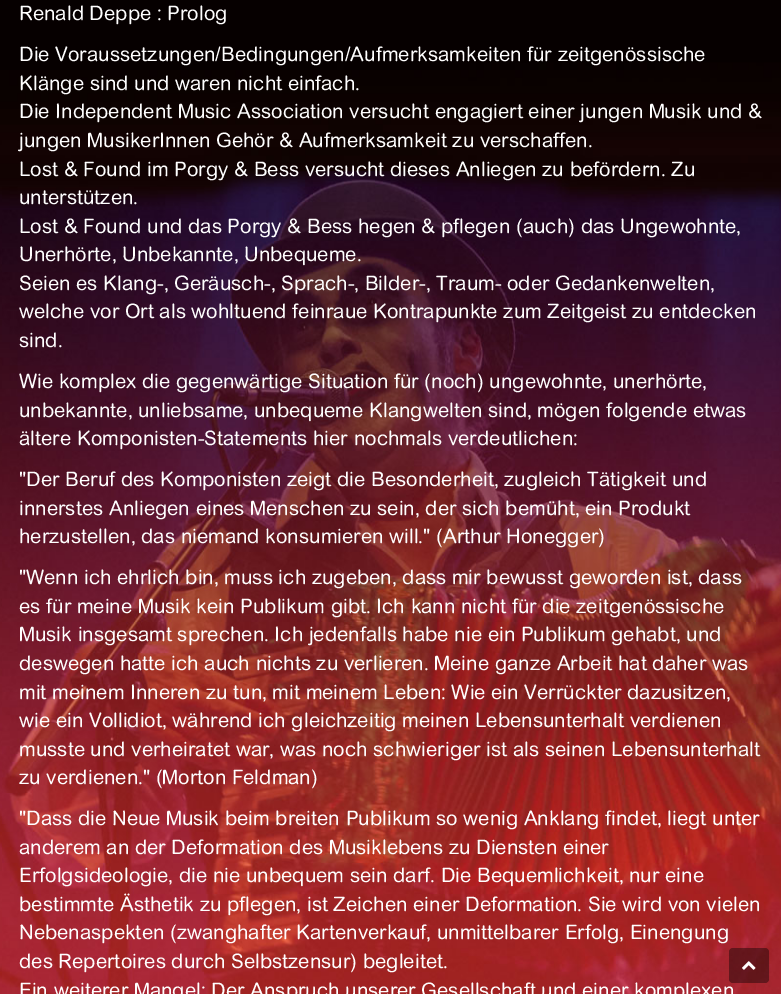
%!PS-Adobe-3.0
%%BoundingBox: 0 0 781 994
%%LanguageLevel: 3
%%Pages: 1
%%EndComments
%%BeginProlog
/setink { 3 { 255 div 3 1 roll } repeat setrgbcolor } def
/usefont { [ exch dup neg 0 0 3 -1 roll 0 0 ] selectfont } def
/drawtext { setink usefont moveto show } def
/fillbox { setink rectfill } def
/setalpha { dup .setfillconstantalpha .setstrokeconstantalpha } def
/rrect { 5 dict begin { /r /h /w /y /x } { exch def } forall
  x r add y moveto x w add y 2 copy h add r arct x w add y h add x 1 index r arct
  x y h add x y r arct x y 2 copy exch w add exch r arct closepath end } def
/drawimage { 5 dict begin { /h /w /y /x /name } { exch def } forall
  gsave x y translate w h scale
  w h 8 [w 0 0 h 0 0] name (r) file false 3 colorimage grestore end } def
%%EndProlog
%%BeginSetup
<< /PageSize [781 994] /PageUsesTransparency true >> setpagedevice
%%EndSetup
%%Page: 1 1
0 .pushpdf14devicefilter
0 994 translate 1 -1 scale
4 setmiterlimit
0 0 781 994 255 255 255 fillbox
(assets/img1.rgb) 0 0 781 994 drawimage
(Renald Deppe : Prolog) 19 20 /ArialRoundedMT-Regular 20 255 255 255 drawtext
(Die Voraussetzungen/Bedingungen/Aufmerksamkeiten für zeitgenössische) 19 61 /ArialRoundedMT-Regular 20 255 255 255 drawtext
(Klänge sind und waren nicht einfach.) 19 90 /ArialRoundedMT-Regular 20 255 255 255 drawtext
(Die Independent Music Association versucht engagiert einer jungen Musik und &) 19 118 /ArialRoundedMT-Regular 20 255 255 255 drawtext
(jungen MusikerInnen Gehör & Aufmerksamkeit zu verschaffen.) 19 147 /ArialRoundedMT-Regular 20 255 255 255 drawtext
(Lost & Found im Porgy & Bess versucht dieses Anliegen zu befördern. Zu) 19 176 /ArialRoundedMT-Regular 20 255 255 255 drawtext
(unterstützen.) 19 204 /ArialRoundedMT-Regular 20 255 255 255 drawtext
(Lost & Found und das Porgy & Bess hegen & pflegen \(auch\) das Ungewohnte,) 19 233 /ArialRoundedMT-Regular 20 255 255 255 drawtext
(Unerhörte, Unbekannte, Unbequeme.) 19 261 /ArialRoundedMT-Regular 20 255 255 255 drawtext
(Seien es Klang-, Geräusch-, Sprach-, Bilder-, Traum- oder Gedankenwelten,) 19 290 /ArialRoundedMT-Regular 20 255 255 255 drawtext
(welche vor Ort als wohltuend feinraue Kontrapunkte zum Zeitgeist zu entdecken) 19 318 /ArialRoundedMT-Regular 20 255 255 255 drawtext
(sind.) 19 347 /ArialRoundedMT-Regular 20 255 255 255 drawtext
(Wie komplex die gegenwärtige Situation für \(noch\) ungewohnte, unerhörte,) 19 388 /ArialRoundedMT-Regular 20 255 255 255 drawtext
(unbekannte, unliebsame, unbequeme Klangwelten sind, mögen folgende etwas) 19 417 /ArialRoundedMT-Regular 20 255 255 255 drawtext
(ältere Komponisten-Statements hier nochmals verdeutlichen:) 19 445 /ArialRoundedMT-Regular 20 255 255 255 drawtext
("Der Beruf des Komponisten zeigt die Besonderheit, zugleich Tätigkeit und) 19 486 /ArialRoundedMT-Regular 20 255 255 255 drawtext
(innerstes Anliegen eines Menschen zu sein, der sich bemüht, ein Produkt) 19 515 /ArialRoundedMT-Regular 20 255 255 255 drawtext
(herzustellen, das niemand konsumieren will." \(Arthur Honegger\)) 19 543 /ArialRoundedMT-Regular 20 255 255 255 drawtext
("Wenn ich ehrlich bin, muss ich zugeben, dass mir bewusst geworden ist, dass) 19 584 /ArialRoundedMT-Regular 20 255 255 255 drawtext
(es für meine Musik kein Publikum gibt. Ich kann nicht für die zeitgenössische) 19 613 /ArialRoundedMT-Regular 20 255 255 255 drawtext
(Musik insgesamt sprechen. Ich jedenfalls habe nie ein Publikum gehabt, und) 19 641 /ArialRoundedMT-Regular 20 255 255 255 drawtext
(deswegen hatte ich auch nichts zu verlieren. Meine ganze Arbeit hat daher was) 19 670 /ArialRoundedMT-Regular 20 255 255 255 drawtext
(mit meinem Inneren zu tun, mit meinem Leben: Wie ein Verrückter dazusitzen,) 19 699 /ArialRoundedMT-Regular 20 255 255 255 drawtext
(wie ein Vollidiot, während ich gleichzeitig meinen Lebensunterhalt verdienen) 19 727 /ArialRoundedMT-Regular 20 255 255 255 drawtext
(musste und verheiratet war, was noch schwieriger ist als seinen Lebensunterhalt) 19 756 /ArialRoundedMT-Regular 20 255 255 255 drawtext
(zu verdienen." \(Morton Feldman\)) 19 784 /ArialRoundedMT-Regular 20 255 255 255 drawtext
("Dass die Neue Musik beim breiten Publikum so wenig Anklang findet, liegt unter) 19 825 /ArialRoundedMT-Regular 20 255 255 255 drawtext
(anderem an der Deformation des Musiklebens zu Diensten einer) 19 854 /ArialRoundedMT-Regular 20 255 255 255 drawtext
(Erfolgsideologie, die nie unbequem sein darf. Die Bequemlichkeit, nur eine) 19 882 /ArialRoundedMT-Regular 20 255 255 255 drawtext
(bestimmte Ästhetik zu pflegen, ist Zeichen einer Deformation. Sie wird von vielen) 19 911 /ArialRoundedMT-Regular 20 255 255 255 drawtext
(Nebenaspekten \(zwanghafter Kartenverkauf, unmittelbarer Erfolg, Einengung) 19 939 /ArialRoundedMT-Regular 20 255 255 255 drawtext
(des Repertoires durch Selbstzensur\) begleitet.) 19 968 /ArialRoundedMT-Regular 20 255 255 255 drawtext
(Ein weiterer Mangel: Der Anspruch unserer Gesellschaft und einer komplexen) 19 997 /ArialRoundedMT-Regular 20 255 255 255 drawtext
0.4 setalpha
0 0 0 setink
729 948 40 35 4 rrect fill
1 setalpha
(assets/img2.rgb) 742 961 14 9 drawimage
.poppdf14devicefilter showpage
%%EOF
